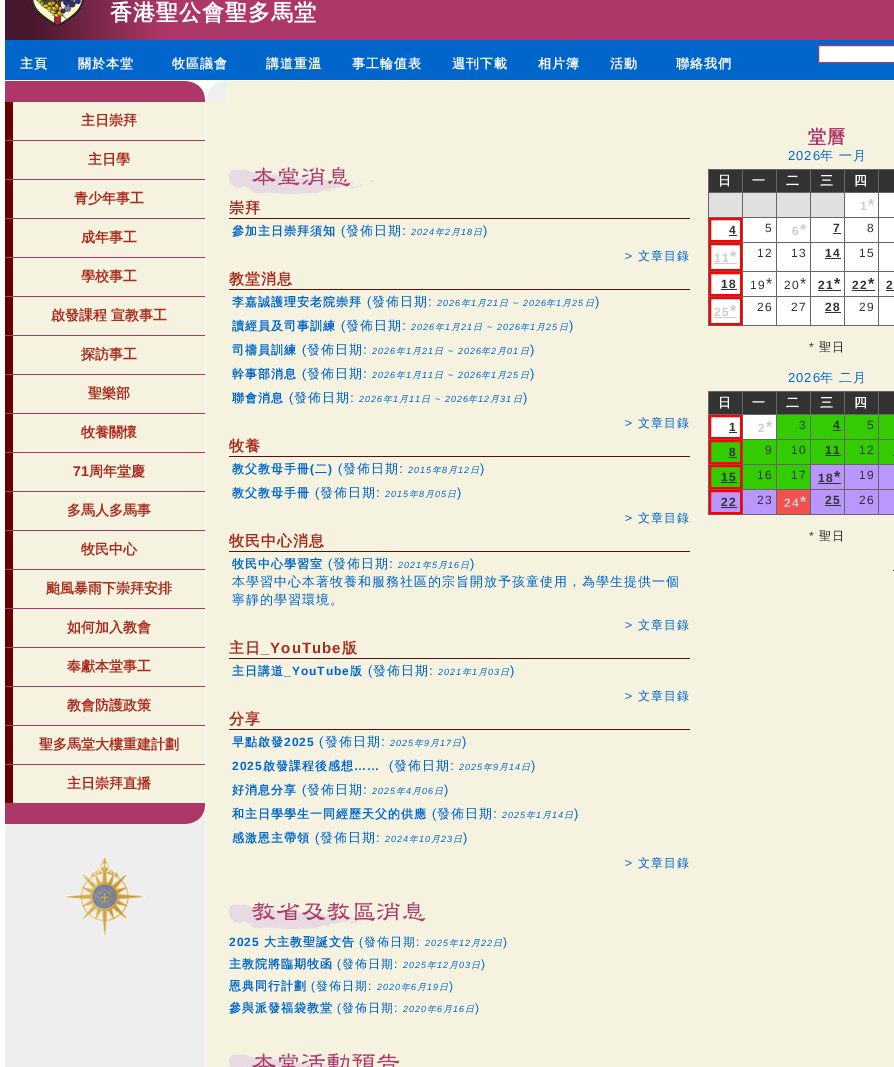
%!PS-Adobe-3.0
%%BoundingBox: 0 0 894 1067
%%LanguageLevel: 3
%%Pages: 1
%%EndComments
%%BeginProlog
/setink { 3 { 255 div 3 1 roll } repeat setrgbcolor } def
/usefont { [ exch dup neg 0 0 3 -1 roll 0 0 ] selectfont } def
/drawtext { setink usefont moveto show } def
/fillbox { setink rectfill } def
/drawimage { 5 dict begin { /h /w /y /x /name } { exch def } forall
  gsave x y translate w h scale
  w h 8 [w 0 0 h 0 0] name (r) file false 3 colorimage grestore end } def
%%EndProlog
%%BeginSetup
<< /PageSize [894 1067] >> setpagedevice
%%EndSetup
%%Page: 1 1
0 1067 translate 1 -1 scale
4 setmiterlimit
0 0 894 1067 255 255 255 fillbox
(assets/img1.rgb) 5 0 889 40 drawimage
(assets/img2.rgb) 31 0 53 26 drawimage
/WenQuanYiZenHei-Bold 22 usefont
110 20 moveto 1 0 (香港聖公會聖多馬堂) ashow
5 40 889 40 0 102 204 fillbox
/WenQuanYiZenHei-Bold 13 usefont
255 255 255 setink
20 68 moveto 1 0 (主頁) ashow
78 68 moveto 1 0 (關於本堂) ashow
172 68 moveto 1 0 (牧區議會) ashow
266 68 moveto 1 0 (講道重溫) ashow
352 68 moveto 1 0 (事工輪值表) ashow
452 68 moveto 1 0 (週刊下載) ashow
538 68 moveto 1 0 (相片簿) ashow
610 68 moveto 1 0 (活動) ashow
676 68 moveto 1 0 (聯絡我們) ashow
818.5 45.5 moveto 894.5 45.5 lineto 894.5 62.5 lineto 818.5 62.5 lineto closepath gsave fill grestore
172 55 104 setink
stroke
5 824 200 243 238 238 238 fillbox
5 81 200 21 172 55 104 fillbox
(assets/img3.rgb) 186 81 19 18 drawimage
5 140 200 1 172 55 104 fillbox
13 102 192 38 245 242 224 fillbox
5 102 8 38 100 0 0 fillbox
(主日崇拜) 81 125 /WenQuanYiZenHei-Bold 14 169 43 29 drawtext
5 179 200 1 172 55 104 fillbox
13 141 192 38 245 242 224 fillbox
5 141 8 38 100 0 0 fillbox
(主日學) 88 164 /WenQuanYiZenHei-Bold 14 169 43 29 drawtext
5 218 200 1 172 55 104 fillbox
13 180 192 38 245 242 224 fillbox
5 180 8 38 100 0 0 fillbox
(青少年事工) 74 203 /WenQuanYiZenHei-Bold 14 169 43 29 drawtext
5 257 200 1 172 55 104 fillbox
13 219 192 38 245 242 224 fillbox
5 219 8 38 100 0 0 fillbox
(成年事工) 81 242 /WenQuanYiZenHei-Bold 14 169 43 29 drawtext
5 296 200 1 172 55 104 fillbox
13 258 192 38 245 242 224 fillbox
5 258 8 38 100 0 0 fillbox
(學校事工) 81 281 /WenQuanYiZenHei-Bold 14 169 43 29 drawtext
5 335 200 1 172 55 104 fillbox
13 297 192 38 245 242 224 fillbox
5 297 8 38 100 0 0 fillbox
(啟發課程 宣教事工) 51 320 /WenQuanYiZenHei-Bold 14 169 43 29 drawtext
5 374 200 1 172 55 104 fillbox
13 336 192 38 245 242 224 fillbox
5 336 8 38 100 0 0 fillbox
(探訪事工) 81 359 /WenQuanYiZenHei-Bold 14 169 43 29 drawtext
5 413 200 1 172 55 104 fillbox
13 375 192 38 245 242 224 fillbox
5 375 8 38 100 0 0 fillbox
(聖樂部) 88 398 /WenQuanYiZenHei-Bold 14 169 43 29 drawtext
5 452 200 1 172 55 104 fillbox
13 414 192 38 245 242 224 fillbox
5 414 8 38 100 0 0 fillbox
(牧養關懷) 81 437 /WenQuanYiZenHei-Bold 14 169 43 29 drawtext
5 491 200 1 172 55 104 fillbox
13 453 192 38 245 242 224 fillbox
5 453 8 38 100 0 0 fillbox
(71) 73 476 /LiberationSans-Bold 14 169 43 29 drawtext
(周年堂慶) 89 476 /WenQuanYiZenHei-Bold 14 169 43 29 drawtext
5 530 200 1 172 55 104 fillbox
13 492 192 38 245 242 224 fillbox
5 492 8 38 100 0 0 fillbox
(多馬人多馬事) 67 515 /WenQuanYiZenHei-Bold 14 169 43 29 drawtext
5 569 200 1 172 55 104 fillbox
13 531 192 38 245 242 224 fillbox
5 531 8 38 100 0 0 fillbox
(牧民中心) 81 554 /WenQuanYiZenHei-Bold 14 169 43 29 drawtext
5 608 200 1 172 55 104 fillbox
13 570 192 38 245 242 224 fillbox
5 570 8 38 100 0 0 fillbox
(颱風暴雨下崇拜安排) 46 593 /WenQuanYiZenHei-Bold 14 169 43 29 drawtext
5 647 200 1 172 55 104 fillbox
13 609 192 38 245 242 224 fillbox
5 609 8 38 100 0 0 fillbox
(如何加入教會) 67 632 /WenQuanYiZenHei-Bold 14 169 43 29 drawtext
5 686 200 1 172 55 104 fillbox
13 648 192 38 245 242 224 fillbox
5 648 8 38 100 0 0 fillbox
(奉獻本堂事工) 67 671 /WenQuanYiZenHei-Bold 14 169 43 29 drawtext
5 725 200 1 172 55 104 fillbox
13 687 192 38 245 242 224 fillbox
5 687 8 38 100 0 0 fillbox
(教會防護政策) 67 710 /WenQuanYiZenHei-Bold 14 169 43 29 drawtext
5 764 200 1 172 55 104 fillbox
13 726 192 38 245 242 224 fillbox
5 726 8 38 100 0 0 fillbox
(聖多馬堂大樓重建計劃) 39 749 /WenQuanYiZenHei-Bold 14 169 43 29 drawtext
5 803 200 1 172 55 104 fillbox
13 765 192 38 245 242 224 fillbox
5 765 8 38 100 0 0 fillbox
(主日崇拜直播) 67 788 /WenQuanYiZenHei-Bold 14 169 43 29 drawtext
5 804 200 20 172 55 104 fillbox
(assets/img4.rgb) 186 806 19 18 drawimage
(assets/img5.rgb) 65 857 80 78 drawimage
206 81 688 986 245 242 224 fillbox
(assets/img6.rgb) 206 81 20 20 drawimage
(assets/img7.rgb) 229 167 144 27 drawimage
229 218 461 1 79 19 13 fillbox
/WenQuanYiZenHei-Bold 15 usefont
169 43 29 setink
229 213 moveto 1 0 (崇拜) ashow
/WenQuanYiZenHei-Bold 12 usefont
0 102 204 setink
232 235 moveto 1 0 (參加主日崇拜須知) ashow
/LiberationSans-Regular 13 usefont
341 235 moveto 1 0 (\() ashow
/WenQuanYiZenHei-Medium 13 usefont
346 235 moveto 1 0 (發佈日期) ashow
/LiberationSans-Regular 13 usefont
402 235 moveto 1 0 (:) ashow
/LiberationSans-Italic 9 usefont
411 235 moveto 1 0 (2024) ashow
/WenQuanYiZenHei-MediumItalic 9 usefont
435 235 moveto 1 0 (年) ashow
/LiberationSans-Italic 9 usefont
445 235 moveto 1 0 (2) ashow
/WenQuanYiZenHei-MediumItalic 9 usefont
451 235 moveto 1 0 (月) ashow
/LiberationSans-Italic 9 usefont
461 235 moveto 1 0 (18) ashow
/WenQuanYiZenHei-MediumItalic 9 usefont
473 235 moveto 1 0 (日) ashow
/LiberationSans-Regular 13 usefont
483 235 moveto 1 0 (\)) ashow
/LiberationSans-Regular 12 usefont
625 260 moveto 1 0 (>) ashow
/WenQuanYiZenHei-Medium 12 usefont
638 260 moveto 1 0 (文章目錄) ashow
229 289 461 1 79 19 13 fillbox
/WenQuanYiZenHei-Bold 15 usefont
169 43 29 setink
229 284 moveto 1 0 (教堂消息) ashow
/WenQuanYiZenHei-Bold 12 usefont
0 102 204 setink
232 306 moveto 1 0 (李嘉誠護理安老院崇拜) ashow
/LiberationSans-Regular 13 usefont
367 306 moveto 1 0 (\() ashow
/WenQuanYiZenHei-Medium 13 usefont
372 306 moveto 1 0 (發佈日期) ashow
/LiberationSans-Regular 13 usefont
428 306 moveto 1 0 (:) ashow
/LiberationSans-Italic 9 usefont
437 306 moveto 1 0 (2026) ashow
/WenQuanYiZenHei-MediumItalic 9 usefont
461 306 moveto 1 0 (年) ashow
/LiberationSans-Italic 9 usefont
471 306 moveto 1 0 (1) ashow
/WenQuanYiZenHei-MediumItalic 9 usefont
477 306 moveto 1 0 (月) ashow
/LiberationSans-Italic 9 usefont
487 306 moveto 1 0 (21) ashow
/WenQuanYiZenHei-MediumItalic 9 usefont
499 306 moveto 1 0 (日) ashow
/LiberationSans-Italic 9 usefont
513 306 moveto 1 0 (~ 2026) ashow
/WenQuanYiZenHei-MediumItalic 9 usefont
546 306 moveto 1 0 (年) ashow
/LiberationSans-Italic 9 usefont
556 306 moveto 1 0 (1) ashow
/WenQuanYiZenHei-MediumItalic 9 usefont
562 306 moveto 1 0 (月) ashow
/LiberationSans-Italic 9 usefont
572 306 moveto 1 0 (25) ashow
/WenQuanYiZenHei-MediumItalic 9 usefont
585 306 moveto 1 0 (日) ashow
/LiberationSans-Regular 13 usefont
595 306 moveto 1 0 (\)) ashow
/WenQuanYiZenHei-Bold 12 usefont
232 330 moveto 1 0 (讀經員及司事訓練) ashow
/LiberationSans-Regular 13 usefont
341 330 moveto 1 0 (\() ashow
/WenQuanYiZenHei-Medium 13 usefont
346 330 moveto 1 0 (發佈日期) ashow
/LiberationSans-Regular 13 usefont
402 330 moveto 1 0 (:) ashow
/LiberationSans-Italic 9 usefont
411 330 moveto 1 0 (2026) ashow
/WenQuanYiZenHei-MediumItalic 9 usefont
435 330 moveto 1 0 (年) ashow
/LiberationSans-Italic 9 usefont
445 330 moveto 1 0 (1) ashow
/WenQuanYiZenHei-MediumItalic 9 usefont
451 330 moveto 1 0 (月) ashow
/LiberationSans-Italic 9 usefont
461 330 moveto 1 0 (21) ashow
/WenQuanYiZenHei-MediumItalic 9 usefont
473 330 moveto 1 0 (日) ashow
/LiberationSans-Italic 9 usefont
487 330 moveto 1 0 (~ 2026) ashow
/WenQuanYiZenHei-MediumItalic 9 usefont
520 330 moveto 1 0 (年) ashow
/LiberationSans-Italic 9 usefont
530 330 moveto 1 0 (1) ashow
/WenQuanYiZenHei-MediumItalic 9 usefont
536 330 moveto 1 0 (月) ashow
/LiberationSans-Italic 9 usefont
546 330 moveto 1 0 (25) ashow
/WenQuanYiZenHei-MediumItalic 9 usefont
559 330 moveto 1 0 (日) ashow
/LiberationSans-Regular 13 usefont
569 330 moveto 1 0 (\)) ashow
/WenQuanYiZenHei-Bold 12 usefont
232 354 moveto 1 0 (司禱員訓練) ashow
/LiberationSans-Regular 13 usefont
302 354 moveto 1 0 (\() ashow
/WenQuanYiZenHei-Medium 13 usefont
307 354 moveto 1 0 (發佈日期) ashow
/LiberationSans-Regular 13 usefont
363 354 moveto 1 0 (:) ashow
/LiberationSans-Italic 9 usefont
372 354 moveto 1 0 (2026) ashow
/WenQuanYiZenHei-MediumItalic 9 usefont
396 354 moveto 1 0 (年) ashow
/LiberationSans-Italic 9 usefont
406 354 moveto 1 0 (1) ashow
/WenQuanYiZenHei-MediumItalic 9 usefont
412 354 moveto 1 0 (月) ashow
/LiberationSans-Italic 9 usefont
422 354 moveto 1 0 (21) ashow
/WenQuanYiZenHei-MediumItalic 9 usefont
434 354 moveto 1 0 (日) ashow
/LiberationSans-Italic 9 usefont
448 354 moveto 1 0 (~ 2026) ashow
/WenQuanYiZenHei-MediumItalic 9 usefont
481 354 moveto 1 0 (年) ashow
/LiberationSans-Italic 9 usefont
491 354 moveto 1 0 (2) ashow
/WenQuanYiZenHei-MediumItalic 9 usefont
497 354 moveto 1 0 (月) ashow
/LiberationSans-Italic 9 usefont
507 354 moveto 1 0 (01) ashow
/WenQuanYiZenHei-MediumItalic 9 usefont
520 354 moveto 1 0 (日) ashow
/LiberationSans-Regular 13 usefont
530 354 moveto 1 0 (\)) ashow
/WenQuanYiZenHei-Bold 12 usefont
232 378 moveto 1 0 (幹事部消息) ashow
/LiberationSans-Regular 13 usefont
302 378 moveto 1 0 (\() ashow
/WenQuanYiZenHei-Medium 13 usefont
307 378 moveto 1 0 (發佈日期) ashow
/LiberationSans-Regular 13 usefont
363 378 moveto 1 0 (:) ashow
/LiberationSans-Italic 9 usefont
372 378 moveto 1 0 (2026) ashow
/WenQuanYiZenHei-MediumItalic 9 usefont
396 378 moveto 1 0 (年) ashow
/LiberationSans-Italic 9 usefont
406 378 moveto 1 0 (1) ashow
/WenQuanYiZenHei-MediumItalic 9 usefont
412 378 moveto 1 0 (月) ashow
/LiberationSans-Italic 9 usefont
422 378 moveto 1 0 (11) ashow
/WenQuanYiZenHei-MediumItalic 9 usefont
434 378 moveto 1 0 (日) ashow
/LiberationSans-Italic 9 usefont
448 378 moveto 1 0 (~ 2026) ashow
/WenQuanYiZenHei-MediumItalic 9 usefont
481 378 moveto 1 0 (年) ashow
/LiberationSans-Italic 9 usefont
491 378 moveto 1 0 (1) ashow
/WenQuanYiZenHei-MediumItalic 9 usefont
497 378 moveto 1 0 (月) ashow
/LiberationSans-Italic 9 usefont
507 378 moveto 1 0 (25) ashow
/WenQuanYiZenHei-MediumItalic 9 usefont
520 378 moveto 1 0 (日) ashow
/LiberationSans-Regular 13 usefont
530 378 moveto 1 0 (\)) ashow
/WenQuanYiZenHei-Bold 12 usefont
232 402 moveto 1 0 (聯會消息) ashow
/LiberationSans-Regular 13 usefont
289 402 moveto 1 0 (\() ashow
/WenQuanYiZenHei-Medium 13 usefont
294 402 moveto 1 0 (發佈日期) ashow
/LiberationSans-Regular 13 usefont
350 402 moveto 1 0 (:) ashow
/LiberationSans-Italic 9 usefont
359 402 moveto 1 0 (2026) ashow
/WenQuanYiZenHei-MediumItalic 9 usefont
383 402 moveto 1 0 (年) ashow
/LiberationSans-Italic 9 usefont
393 402 moveto 1 0 (1) ashow
/WenQuanYiZenHei-MediumItalic 9 usefont
399 402 moveto 1 0 (月) ashow
/LiberationSans-Italic 9 usefont
409 402 moveto 1 0 (11) ashow
/WenQuanYiZenHei-MediumItalic 9 usefont
421 402 moveto 1 0 (日) ashow
/LiberationSans-Italic 9 usefont
435 402 moveto 1 0 (~ 2026) ashow
/WenQuanYiZenHei-MediumItalic 9 usefont
468 402 moveto 1 0 (年) ashow
/LiberationSans-Italic 9 usefont
478 402 moveto 1 0 (12) ashow
/WenQuanYiZenHei-MediumItalic 9 usefont
490 402 moveto 1 0 (月) ashow
/LiberationSans-Italic 9 usefont
500 402 moveto 1 0 (31) ashow
/WenQuanYiZenHei-MediumItalic 9 usefont
513 402 moveto 1 0 (日) ashow
/LiberationSans-Regular 13 usefont
523 402 moveto 1 0 (\)) ashow
/LiberationSans-Regular 12 usefont
625 427 moveto 1 0 (>) ashow
/WenQuanYiZenHei-Medium 12 usefont
638 427 moveto 1 0 (文章目錄) ashow
229 456 461 1 79 19 13 fillbox
/WenQuanYiZenHei-Bold 15 usefont
169 43 29 setink
229 451 moveto 1 0 (牧養) ashow
/WenQuanYiZenHei-Bold 12 usefont
0 102 204 setink
232 473 moveto 1 0 (教父教母手冊) ashow
/LiberationSans-Bold 12 usefont
310 473 moveto 1 0 (\() ashow
/WenQuanYiZenHei-Bold 12 usefont
315 473 moveto 1 0 (二) ashow
/LiberationSans-Bold 12 usefont
328 473 moveto 1 0 (\)) ashow
/LiberationSans-Regular 13 usefont
338 473 moveto 1 0 (\() ashow
/WenQuanYiZenHei-Medium 13 usefont
343 473 moveto 1 0 (發佈日期) ashow
/LiberationSans-Regular 13 usefont
399 473 moveto 1 0 (:) ashow
/LiberationSans-Italic 9 usefont
408 473 moveto 1 0 (2015) ashow
/WenQuanYiZenHei-MediumItalic 9 usefont
432 473 moveto 1 0 (年) ashow
/LiberationSans-Italic 9 usefont
442 473 moveto 1 0 (8) ashow
/WenQuanYiZenHei-MediumItalic 9 usefont
448 473 moveto 1 0 (月) ashow
/LiberationSans-Italic 9 usefont
458 473 moveto 1 0 (12) ashow
/WenQuanYiZenHei-MediumItalic 9 usefont
470 473 moveto 1 0 (日) ashow
/LiberationSans-Regular 13 usefont
480 473 moveto 1 0 (\)) ashow
/WenQuanYiZenHei-Bold 12 usefont
232 497 moveto 1 0 (教父教母手冊) ashow
/LiberationSans-Regular 13 usefont
315 497 moveto 1 0 (\() ashow
/WenQuanYiZenHei-Medium 13 usefont
320 497 moveto 1 0 (發佈日期) ashow
/LiberationSans-Regular 13 usefont
376 497 moveto 1 0 (:) ashow
/LiberationSans-Italic 9 usefont
385 497 moveto 1 0 (2015) ashow
/WenQuanYiZenHei-MediumItalic 9 usefont
409 497 moveto 1 0 (年) ashow
/LiberationSans-Italic 9 usefont
419 497 moveto 1 0 (8) ashow
/WenQuanYiZenHei-MediumItalic 9 usefont
425 497 moveto 1 0 (月) ashow
/LiberationSans-Italic 9 usefont
435 497 moveto 1 0 (05) ashow
/WenQuanYiZenHei-MediumItalic 9 usefont
447 497 moveto 1 0 (日) ashow
/LiberationSans-Regular 13 usefont
457 497 moveto 1 0 (\)) ashow
/LiberationSans-Regular 12 usefont
625 522 moveto 1 0 (>) ashow
/WenQuanYiZenHei-Medium 12 usefont
638 522 moveto 1 0 (文章目錄) ashow
229 551 461 1 79 19 13 fillbox
/WenQuanYiZenHei-Bold 15 usefont
169 43 29 setink
229 546 moveto 1 0 (牧民中心消息) ashow
/WenQuanYiZenHei-Bold 12 usefont
0 102 204 setink
232 568 moveto 1 0 (牧民中心學習室) ashow
/LiberationSans-Regular 13 usefont
328 568 moveto 1 0 (\() ashow
/WenQuanYiZenHei-Medium 13 usefont
333 568 moveto 1 0 (發佈日期) ashow
/LiberationSans-Regular 13 usefont
389 568 moveto 1 0 (:) ashow
/LiberationSans-Italic 9 usefont
398 568 moveto 1 0 (2021) ashow
/WenQuanYiZenHei-MediumItalic 9 usefont
422 568 moveto 1 0 (年) ashow
/LiberationSans-Italic 9 usefont
432 568 moveto 1 0 (5) ashow
/WenQuanYiZenHei-MediumItalic 9 usefont
438 568 moveto 1 0 (月) ashow
/LiberationSans-Italic 9 usefont
448 568 moveto 1 0 (16) ashow
/WenQuanYiZenHei-MediumItalic 9 usefont
460 568 moveto 1 0 (日) ashow
/LiberationSans-Regular 13 usefont
470 568 moveto 1 0 (\)) ashow
/WenQuanYiZenHei-Medium 13 usefont
232 586 moveto 1 0 (本學習中心本著牧養和服務社區的宗旨開放予孩童使用，為學生提供一個) ashow
232 604 moveto 1 0 (寧靜的學習環境。) ashow
/LiberationSans-Regular 12 usefont
625 629 moveto 1 0 (>) ashow
/WenQuanYiZenHei-Medium 12 usefont
638 629 moveto 1 0 (文章目錄) ashow
229 658 461 1 79 19 13 fillbox
/WenQuanYiZenHei-Bold 15 usefont
169 43 29 setink
229 653 moveto 1 0 (主日) ashow
/LiberationSans-Bold 15 usefont
261 653 moveto 1 0 (_YouTube) ashow
/WenQuanYiZenHei-Bold 15 usefont
342 653 moveto 1 0 (版) ashow
/WenQuanYiZenHei-Bold 12 usefont
0 102 204 setink
232 675 moveto 1 0 (主日講道) ashow
/LiberationSans-Bold 12 usefont
284 675 moveto 1 0 (_YouTube) ashow
/WenQuanYiZenHei-Bold 12 usefont
350 675 moveto 1 0 (版) ashow
/LiberationSans-Regular 13 usefont
368 675 moveto 1 0 (\() ashow
/WenQuanYiZenHei-Medium 13 usefont
373 675 moveto 1 0 (發佈日期) ashow
/LiberationSans-Regular 13 usefont
429 675 moveto 1 0 (:) ashow
/LiberationSans-Italic 9 usefont
438 675 moveto 1 0 (2021) ashow
/WenQuanYiZenHei-MediumItalic 9 usefont
462 675 moveto 1 0 (年) ashow
/LiberationSans-Italic 9 usefont
472 675 moveto 1 0 (1) ashow
/WenQuanYiZenHei-MediumItalic 9 usefont
478 675 moveto 1 0 (月) ashow
/LiberationSans-Italic 9 usefont
488 675 moveto 1 0 (03) ashow
/WenQuanYiZenHei-MediumItalic 9 usefont
500 675 moveto 1 0 (日) ashow
/LiberationSans-Regular 13 usefont
510 675 moveto 1 0 (\)) ashow
/LiberationSans-Regular 12 usefont
625 700 moveto 1 0 (>) ashow
/WenQuanYiZenHei-Medium 12 usefont
638 700 moveto 1 0 (文章目錄) ashow
229 729 461 1 79 19 13 fillbox
/WenQuanYiZenHei-Bold 15 usefont
169 43 29 setink
229 724 moveto 1 0 (分享) ashow
/WenQuanYiZenHei-Bold 12 usefont
0 102 204 setink
232 746 moveto 1 0 (早點啟發) ashow
/LiberationSans-Bold 12 usefont
284 746 moveto 1 0 (2025) ashow
/LiberationSans-Regular 13 usefont
319 746 moveto 1 0 (\() ashow
/WenQuanYiZenHei-Medium 13 usefont
325 746 moveto 1 0 (發佈日期) ashow
/LiberationSans-Regular 13 usefont
381 746 moveto 1 0 (:) ashow
/LiberationSans-Italic 9 usefont
390 746 moveto 1 0 (2025) ashow
/WenQuanYiZenHei-MediumItalic 9 usefont
414 746 moveto 1 0 (年) ashow
/LiberationSans-Italic 9 usefont
424 746 moveto 1 0 (9) ashow
/WenQuanYiZenHei-MediumItalic 9 usefont
430 746 moveto 1 0 (月) ashow
/LiberationSans-Italic 9 usefont
440 746 moveto 1 0 (17) ashow
/WenQuanYiZenHei-MediumItalic 9 usefont
452 746 moveto 1 0 (日) ashow
/LiberationSans-Regular 13 usefont
462 746 moveto 1 0 (\)) ashow
/LiberationSans-Bold 12 usefont
232 770 moveto 1 0 (2025) ashow
/WenQuanYiZenHei-Bold 12 usefont
263 770 moveto 1 0 (啟發課程後感想) ashow
/LiberationSans-Bold 12 usefont
354 770 moveto 1 0 (……) ashow
/LiberationSans-Regular 13 usefont
389 770 moveto 1 0 (\() ashow
/WenQuanYiZenHei-Medium 13 usefont
394 770 moveto 1 0 (發佈日期) ashow
/LiberationSans-Regular 13 usefont
450 770 moveto 1 0 (:) ashow
/LiberationSans-Italic 9 usefont
459 770 moveto 1 0 (2025) ashow
/WenQuanYiZenHei-MediumItalic 9 usefont
483 770 moveto 1 0 (年) ashow
/LiberationSans-Italic 9 usefont
493 770 moveto 1 0 (9) ashow
/WenQuanYiZenHei-MediumItalic 9 usefont
499 770 moveto 1 0 (月) ashow
/LiberationSans-Italic 9 usefont
509 770 moveto 1 0 (14) ashow
/WenQuanYiZenHei-MediumItalic 9 usefont
521 770 moveto 1 0 (日) ashow
/LiberationSans-Regular 13 usefont
531 770 moveto 1 0 (\)) ashow
/WenQuanYiZenHei-Bold 12 usefont
232 794 moveto 1 0 (好消息分享) ashow
/LiberationSans-Regular 13 usefont
302 794 moveto 1 0 (\() ashow
/WenQuanYiZenHei-Medium 13 usefont
307 794 moveto 1 0 (發佈日期) ashow
/LiberationSans-Regular 13 usefont
363 794 moveto 1 0 (:) ashow
/LiberationSans-Italic 9 usefont
372 794 moveto 1 0 (2025) ashow
/WenQuanYiZenHei-MediumItalic 9 usefont
396 794 moveto 1 0 (年) ashow
/LiberationSans-Italic 9 usefont
406 794 moveto 1 0 (4) ashow
/WenQuanYiZenHei-MediumItalic 9 usefont
412 794 moveto 1 0 (月) ashow
/LiberationSans-Italic 9 usefont
422 794 moveto 1 0 (06) ashow
/WenQuanYiZenHei-MediumItalic 9 usefont
434 794 moveto 1 0 (日) ashow
/LiberationSans-Regular 13 usefont
444 794 moveto 1 0 (\)) ashow
/WenQuanYiZenHei-Bold 12 usefont
232 818 moveto 1 0 (和主日學學生一同經歷天父的供應) ashow
/LiberationSans-Regular 13 usefont
432 818 moveto 1 0 (\() ashow
/WenQuanYiZenHei-Medium 13 usefont
437 818 moveto 1 0 (發佈日期) ashow
/LiberationSans-Regular 13 usefont
493 818 moveto 1 0 (:) ashow
/LiberationSans-Italic 9 usefont
502 818 moveto 1 0 (2025) ashow
/WenQuanYiZenHei-MediumItalic 9 usefont
526 818 moveto 1 0 (年) ashow
/LiberationSans-Italic 9 usefont
536 818 moveto 1 0 (1) ashow
/WenQuanYiZenHei-MediumItalic 9 usefont
542 818 moveto 1 0 (月) ashow
/LiberationSans-Italic 9 usefont
552 818 moveto 1 0 (14) ashow
/WenQuanYiZenHei-MediumItalic 9 usefont
564 818 moveto 1 0 (日) ashow
/LiberationSans-Regular 13 usefont
574 818 moveto 1 0 (\)) ashow
/WenQuanYiZenHei-Bold 12 usefont
232 842 moveto 1 0 (感激恩主帶領) ashow
/LiberationSans-Regular 13 usefont
315 842 moveto 1 0 (\() ashow
/WenQuanYiZenHei-Medium 13 usefont
320 842 moveto 1 0 (發佈日期) ashow
/LiberationSans-Regular 13 usefont
376 842 moveto 1 0 (:) ashow
/LiberationSans-Italic 9 usefont
385 842 moveto 1 0 (2024) ashow
/WenQuanYiZenHei-MediumItalic 9 usefont
409 842 moveto 1 0 (年) ashow
/LiberationSans-Italic 9 usefont
419 842 moveto 1 0 (10) ashow
/WenQuanYiZenHei-MediumItalic 9 usefont
431 842 moveto 1 0 (月) ashow
/LiberationSans-Italic 9 usefont
441 842 moveto 1 0 (23) ashow
/WenQuanYiZenHei-MediumItalic 9 usefont
453 842 moveto 1 0 (日) ashow
/LiberationSans-Regular 13 usefont
463 842 moveto 1 0 (\)) ashow
/LiberationSans-Regular 12 usefont
625 867 moveto 1 0 (>) ashow
/WenQuanYiZenHei-Medium 12 usefont
638 867 moveto 1 0 (文章目錄) ashow
(assets/img8.rgb) 229 902 196 27 drawimage
/LiberationSans-Bold 12 usefont
229 946 moveto 1 0 (2025) ashow
/WenQuanYiZenHei-Bold 12 usefont
264 946 moveto 1 0 (大主教聖誕文告) ashow
/LiberationSans-Regular 12 usefont
359 946 moveto 1 0 (\() ashow
/WenQuanYiZenHei-Medium 12 usefont
364 946 moveto 1 0 (發佈日期) ashow
/LiberationSans-Regular 12 usefont
416 946 moveto 1 0 (:) ashow
/LiberationSans-Italic 9 usefont
425 946 moveto 1 0 (2025) ashow
/WenQuanYiZenHei-MediumItalic 9 usefont
449 946 moveto 1 0 (年) ashow
/LiberationSans-Italic 9 usefont
459 946 moveto 1 0 (12) ashow
/WenQuanYiZenHei-MediumItalic 9 usefont
471 946 moveto 1 0 (月) ashow
/LiberationSans-Italic 9 usefont
481 946 moveto 1 0 (22) ashow
/WenQuanYiZenHei-MediumItalic 9 usefont
493 946 moveto 1 0 (日) ashow
/LiberationSans-Regular 12 usefont
503 946 moveto 1 0 (\)) ashow
/WenQuanYiZenHei-Bold 12 usefont
229 968 moveto 1 0 (主教院將臨期牧函) ashow
/LiberationSans-Regular 12 usefont
337 968 moveto 1 0 (\() ashow
/WenQuanYiZenHei-Medium 12 usefont
342 968 moveto 1 0 (發佈日期) ashow
/LiberationSans-Regular 12 usefont
394 968 moveto 1 0 (:) ashow
/LiberationSans-Italic 9 usefont
403 968 moveto 1 0 (2025) ashow
/WenQuanYiZenHei-MediumItalic 9 usefont
427 968 moveto 1 0 (年) ashow
/LiberationSans-Italic 9 usefont
437 968 moveto 1 0 (12) ashow
/WenQuanYiZenHei-MediumItalic 9 usefont
449 968 moveto 1 0 (月) ashow
/LiberationSans-Italic 9 usefont
459 968 moveto 1 0 (03) ashow
/WenQuanYiZenHei-MediumItalic 9 usefont
471 968 moveto 1 0 (日) ashow
/LiberationSans-Regular 12 usefont
481 968 moveto 1 0 (\)) ashow
/WenQuanYiZenHei-Bold 12 usefont
229 990 moveto 1 0 (恩典同行計劃) ashow
/LiberationSans-Regular 12 usefont
311 990 moveto 1 0 (\() ashow
/WenQuanYiZenHei-Medium 12 usefont
316 990 moveto 1 0 (發佈日期) ashow
/LiberationSans-Regular 12 usefont
368 990 moveto 1 0 (:) ashow
/LiberationSans-Italic 9 usefont
377 990 moveto 1 0 (2020) ashow
/WenQuanYiZenHei-MediumItalic 9 usefont
401 990 moveto 1 0 (年) ashow
/LiberationSans-Italic 9 usefont
411 990 moveto 1 0 (6) ashow
/WenQuanYiZenHei-MediumItalic 9 usefont
417 990 moveto 1 0 (月) ashow
/LiberationSans-Italic 9 usefont
427 990 moveto 1 0 (19) ashow
/WenQuanYiZenHei-MediumItalic 9 usefont
439 990 moveto 1 0 (日) ashow
/LiberationSans-Regular 12 usefont
449 990 moveto 1 0 (\)) ashow
/WenQuanYiZenHei-Bold 12 usefont
229 1012 moveto 1 0 (參與派發福袋教堂) ashow
/LiberationSans-Regular 12 usefont
337 1012 moveto 1 0 (\() ashow
/WenQuanYiZenHei-Medium 12 usefont
342 1012 moveto 1 0 (發佈日期) ashow
/LiberationSans-Regular 12 usefont
394 1012 moveto 1 0 (:) ashow
/LiberationSans-Italic 9 usefont
403 1012 moveto 1 0 (2020) ashow
/WenQuanYiZenHei-MediumItalic 9 usefont
427 1012 moveto 1 0 (年) ashow
/LiberationSans-Italic 9 usefont
437 1012 moveto 1 0 (6) ashow
/WenQuanYiZenHei-MediumItalic 9 usefont
443 1012 moveto 1 0 (月) ashow
/LiberationSans-Italic 9 usefont
453 1012 moveto 1 0 (16) ashow
/WenQuanYiZenHei-MediumItalic 9 usefont
465 1012 moveto 1 0 (日) ashow
/LiberationSans-Regular 12 usefont
475 1012 moveto 1 0 (\)) ashow
(assets/img9.rgb) 229 1052 170 15 drawimage
/WenQuanYiZenHei-Bold 18 usefont
172 55 104 setink
808 143 moveto 1 0 (堂曆) ashow
/LiberationSans-Regular 13 usefont
0 102 204 setink
788 160 moveto 1 0 (2026) ashow
/WenQuanYiZenHei-Medium 13 usefont
820 160 moveto 1 0 (年 一月) ashow
708 169 186 157 102 102 102 fillbox
709 170 33 22 51 51 51 fillbox
/WenQuanYiZenHei-Bold 13 usefont
255 255 255 setink
718 185 moveto 1 0 (日) ashow
743 170 33 22 51 51 51 fillbox
255 255 255 setink
752 185 moveto 1 0 (一) ashow
777 170 33 22 51 51 51 fillbox
255 255 255 setink
786 185 moveto 1 0 (二) ashow
811 170 33 22 51 51 51 fillbox
255 255 255 setink
820 185 moveto 1 0 (三) ashow
845 170 33 22 51 51 51 fillbox
255 255 255 setink
854 185 moveto 1 0 (四) ashow
879 170 15 22 51 51 51 fillbox
709 193 33 24 224 224 224 fillbox
743 193 33 24 224 224 224 fillbox
777 193 33 24 224 224 224 fillbox
811 193 33 24 224 224 224 fillbox
845 193 33 24 255 255 255 fillbox
/LiberationSans-Bold 12 usefont
204 204 204 setink
860 210 moveto 1 0 (1) ashow
/LiberationSans-Bold 16 usefont
868 210 moveto 1 0 (*) ashow
879 193 15 24 255 255 255 fillbox
710 219 moveto 741 219 lineto 741 241 lineto 710 241 lineto closepath gsave fill grestore
255 0 0 setink
2 setlinewidth
stroke
/LiberationSans-Bold 12 usefont
51 51 51 setink
729 234 moveto 1 0 (4) ashow
729 235 8 1 51 51 51 fillbox
743 218 33 24 255 255 255 fillbox
/LiberationSans-Regular 12 usefont
51 51 51 setink
765 232 moveto 1 0 (5) ashow
777 218 33 24 255 255 255 fillbox
/LiberationSans-Bold 12 usefont
204 204 204 setink
792 235 moveto 1 0 (6) ashow
/LiberationSans-Bold 16 usefont
800 235 moveto 1 0 (*) ashow
811 218 33 24 255 255 255 fillbox
/LiberationSans-Bold 12 usefont
51 51 51 setink
833 232 moveto 1 0 (7) ashow
833 233 8 1 51 51 51 fillbox
845 218 33 24 255 255 255 fillbox
/LiberationSans-Regular 12 usefont
51 51 51 setink
867 232 moveto 1 0 (8) ashow
879 218 15 24 255 255 255 fillbox
710 244 moveto 741 244 lineto 741 270 lineto 710 270 lineto closepath gsave fill grestore
255 0 0 setink
stroke
/LiberationSans-Bold 12 usefont
204 204 204 setink
714 262 moveto 1 0 (11) ashow
714 263 23 1 204 204 204 fillbox
/LiberationSans-Bold 16 usefont
730 262 moveto 1 0 (*) ashow
743 243 33 28 255 255 255 fillbox
/LiberationSans-Regular 12 usefont
51 51 51 setink
757 257 moveto 1 0 (12) ashow
777 243 33 28 255 255 255 fillbox
51 51 51 setink
791 257 moveto 1 0 (13) ashow
811 243 33 28 255 255 255 fillbox
/LiberationSans-Bold 12 usefont
51 51 51 setink
825 257 moveto 1 0 (14) ashow
825 258 16 1 51 51 51 fillbox
845 243 33 28 255 255 255 fillbox
/LiberationSans-Regular 12 usefont
51 51 51 setink
859 257 moveto 1 0 (15) ashow
879 243 15 28 255 255 255 fillbox
710 273 moveto 741 273 lineto 741 295 lineto 710 295 lineto closepath gsave fill grestore
255 0 0 setink
stroke
/LiberationSans-Bold 12 usefont
51 51 51 setink
721 288 moveto 1 0 (18) ashow
721 289 16 1 51 51 51 fillbox
743 272 33 24 255 255 255 fillbox
/LiberationSans-Regular 12 usefont
51 51 51 setink
750 289 moveto 1 0 (19) ashow
/LiberationSans-Regular 16 usefont
766 289 moveto 1 0 (*) ashow
777 272 33 24 255 255 255 fillbox
/LiberationSans-Regular 12 usefont
51 51 51 setink
784 289 moveto 1 0 (20) ashow
/LiberationSans-Regular 16 usefont
800 289 moveto 1 0 (*) ashow
811 272 33 24 255 255 255 fillbox
/LiberationSans-Bold 12 usefont
51 51 51 setink
818 289 moveto 1 0 (21) ashow
818 290 23 1 51 51 51 fillbox
/LiberationSans-Bold 16 usefont
834 289 moveto 1 0 (*) ashow
845 272 33 24 255 255 255 fillbox
/LiberationSans-Bold 12 usefont
51 51 51 setink
852 289 moveto 1 0 (22) ashow
852 290 23 1 51 51 51 fillbox
/LiberationSans-Bold 16 usefont
868 289 moveto 1 0 (*) ashow
879 272 15 24 255 255 255 fillbox
/LiberationSans-Bold 12 usefont
51 51 51 setink
886 289 moveto 1 0 (2) ashow
886 290 8 1 51 51 51 fillbox
255 255 255 setink
710 298 moveto 741 298 lineto 741 324 lineto 710 324 lineto closepath gsave fill grestore
255 0 0 setink
stroke
204 204 204 setink
714 316 moveto 1 0 (25) ashow
714 317 23 1 204 204 204 fillbox
/LiberationSans-Bold 16 usefont
730 316 moveto 1 0 (*) ashow
743 297 33 28 255 255 255 fillbox
/LiberationSans-Regular 12 usefont
51 51 51 setink
757 311 moveto 1 0 (26) ashow
777 297 33 28 255 255 255 fillbox
51 51 51 setink
791 311 moveto 1 0 (27) ashow
811 297 33 28 255 255 255 fillbox
/LiberationSans-Bold 12 usefont
51 51 51 setink
825 311 moveto 1 0 (28) ashow
825 312 16 1 51 51 51 fillbox
845 297 33 28 255 255 255 fillbox
/LiberationSans-Regular 12 usefont
51 51 51 setink
859 311 moveto 1 0 (29) ashow
879 297 15 28 255 255 255 fillbox
51 51 51 setink
809 351 moveto 1 0 (*) ashow
/WenQuanYiZenHei-Medium 12 usefont
819 351 moveto 1 0 (聖日) ashow
/LiberationSans-Regular 13 usefont
0 102 204 setink
788 382 moveto 1 0 (2026) ashow
/WenQuanYiZenHei-Medium 13 usefont
820 382 moveto 1 0 (年 二月) ashow
708 391 186 124 102 102 102 fillbox
709 392 33 22 51 51 51 fillbox
/WenQuanYiZenHei-Bold 13 usefont
255 255 255 setink
718 407 moveto 1 0 (日) ashow
743 392 33 22 51 51 51 fillbox
255 255 255 setink
752 407 moveto 1 0 (一) ashow
777 392 33 22 51 51 51 fillbox
255 255 255 setink
786 407 moveto 1 0 (二) ashow
811 392 33 22 51 51 51 fillbox
255 255 255 setink
820 407 moveto 1 0 (三) ashow
845 392 33 22 51 51 51 fillbox
255 255 255 setink
854 407 moveto 1 0 (四) ashow
879 392 15 22 51 51 51 fillbox
255 255 255 setink
710 416 moveto 741 416 lineto 741 438 lineto 710 438 lineto closepath gsave fill grestore
255 0 0 setink
stroke
/LiberationSans-Bold 12 usefont
51 51 51 setink
729 431 moveto 1 0 (1) ashow
729 432 8 1 51 51 51 fillbox
743 415 33 24 255 255 255 fillbox
204 204 204 setink
758 432 moveto 1 0 (2) ashow
/LiberationSans-Bold 16 usefont
766 432 moveto 1 0 (*) ashow
777 415 33 24 51 204 0 fillbox
/LiberationSans-Regular 12 usefont
51 51 51 setink
799 429 moveto 1 0 (3) ashow
811 415 33 24 51 204 0 fillbox
/LiberationSans-Bold 12 usefont
51 51 51 setink
833 429 moveto 1 0 (4) ashow
833 430 8 1 51 51 51 fillbox
845 415 33 24 51 204 0 fillbox
/LiberationSans-Regular 12 usefont
51 51 51 setink
867 429 moveto 1 0 (5) ashow
879 415 15 24 51 204 0 fillbox
710 441 moveto 741 441 lineto 741 463 lineto 710 463 lineto closepath gsave fill grestore
255 0 0 setink
stroke
/LiberationSans-Bold 12 usefont
51 51 51 setink
729 456 moveto 1 0 (8) ashow
729 457 8 1 51 51 51 fillbox
743 440 33 24 51 204 0 fillbox
/LiberationSans-Regular 12 usefont
51 51 51 setink
765 454 moveto 1 0 (9) ashow
777 440 33 24 51 204 0 fillbox
51 51 51 setink
791 454 moveto 1 0 (10) ashow
811 440 33 24 51 204 0 fillbox
/LiberationSans-Bold 12 usefont
51 51 51 setink
825 454 moveto 1 0 (11) ashow
825 455 16 1 51 51 51 fillbox
845 440 33 24 51 204 0 fillbox
/LiberationSans-Regular 12 usefont
51 51 51 setink
859 454 moveto 1 0 (12) ashow
879 440 15 24 51 204 0 fillbox
893 455 1 1 51 51 51 fillbox
51 204 0 setink
710 466 moveto 741 466 lineto 741 488 lineto 710 488 lineto closepath gsave fill grestore
255 0 0 setink
stroke
/LiberationSans-Bold 12 usefont
51 51 51 setink
721 481 moveto 1 0 (15) ashow
721 482 16 1 51 51 51 fillbox
743 465 33 24 51 204 0 fillbox
/LiberationSans-Regular 12 usefont
51 51 51 setink
757 479 moveto 1 0 (16) ashow
777 465 33 24 51 204 0 fillbox
51 51 51 setink
791 479 moveto 1 0 (17) ashow
811 465 33 24 185 151 255 fillbox
/LiberationSans-Bold 12 usefont
51 51 51 setink
818 482 moveto 1 0 (18) ashow
818 483 23 1 51 51 51 fillbox
/LiberationSans-Bold 16 usefont
834 482 moveto 1 0 (*) ashow
845 465 33 24 185 151 255 fillbox
/LiberationSans-Regular 12 usefont
51 51 51 setink
859 479 moveto 1 0 (19) ashow
879 465 15 24 185 151 255 fillbox
710 491 moveto 741 491 lineto 741 513 lineto 710 513 lineto closepath gsave fill grestore
255 0 0 setink
stroke
/LiberationSans-Bold 12 usefont
51 51 51 setink
721 506 moveto 1 0 (22) ashow
721 507 16 1 51 51 51 fillbox
743 490 33 24 185 151 255 fillbox
/LiberationSans-Regular 12 usefont
51 51 51 setink
757 504 moveto 1 0 (23) ashow
777 490 33 24 243 80 80 fillbox
/LiberationSans-Bold 12 usefont
204 204 204 setink
784 507 moveto 1 0 (24) ashow
/LiberationSans-Bold 16 usefont
800 507 moveto 1 0 (*) ashow
811 490 33 24 185 151 255 fillbox
/LiberationSans-Bold 12 usefont
51 51 51 setink
825 504 moveto 1 0 (25) ashow
825 505 16 1 51 51 51 fillbox
845 490 33 24 185 151 255 fillbox
/LiberationSans-Regular 12 usefont
51 51 51 setink
859 504 moveto 1 0 (26) ashow
879 490 15 24 185 151 255 fillbox
51 51 51 setink
809 540 moveto 1 0 (*) ashow
/WenQuanYiZenHei-Medium 12 usefont
819 540 moveto 1 0 (聖日) ashow
893 570 1 1 51 51 51 fillbox
showpage
%%EOF
